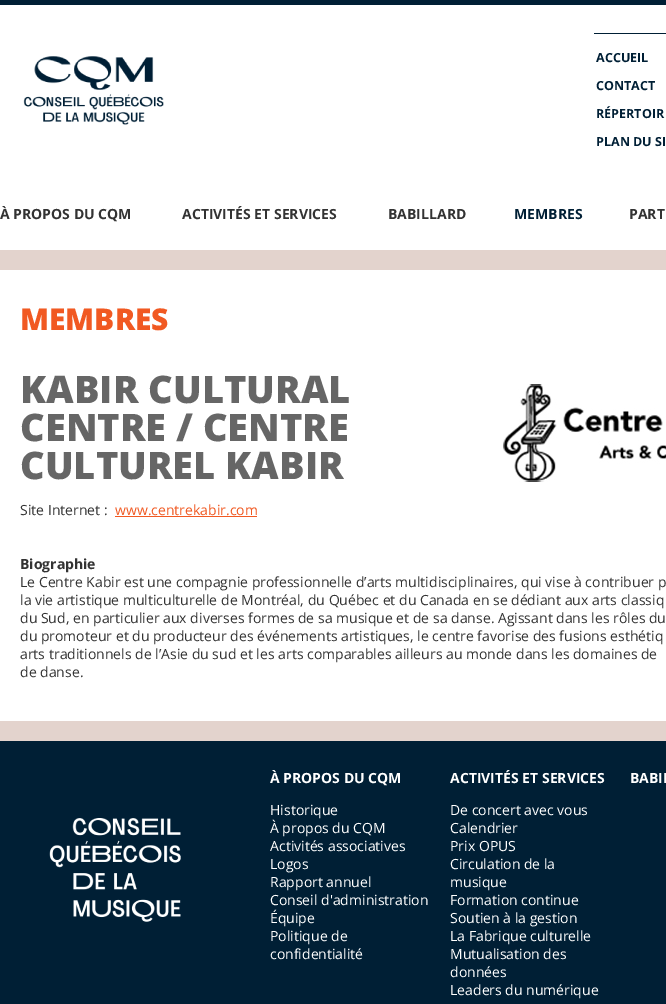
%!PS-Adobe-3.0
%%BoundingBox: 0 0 666 1004
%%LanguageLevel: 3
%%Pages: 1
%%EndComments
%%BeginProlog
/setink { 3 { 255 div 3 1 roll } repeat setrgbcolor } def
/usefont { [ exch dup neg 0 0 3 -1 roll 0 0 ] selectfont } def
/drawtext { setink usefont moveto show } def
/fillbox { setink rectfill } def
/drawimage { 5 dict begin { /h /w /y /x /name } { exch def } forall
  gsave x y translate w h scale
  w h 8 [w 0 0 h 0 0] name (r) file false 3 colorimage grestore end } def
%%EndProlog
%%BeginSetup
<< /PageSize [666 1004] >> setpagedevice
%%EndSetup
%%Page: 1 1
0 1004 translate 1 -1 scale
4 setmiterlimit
0 0 666 1004 0 31 53 fillbox
0 5 666 245 255 255 255 fillbox
(assets/img1.rgb) 23 56 141 69 drawimage
594 33 72 1 0 31 53 fillbox
(ACCUEIL) 596 62 /OpenSans-Bold 12.5 0 31 53 drawtext
(CONTACT) 596 90 /OpenSans-Bold 12.5 0 31 53 drawtext
(RÉPERTOIR) 596 118 /OpenSans-Bold 12.5 0 31 53 drawtext
(PLAN DU SI) 596 146 /OpenSans-Bold 12.5 0 31 53 drawtext
(À PROPOS DU CQM) 0 219 /OpenSans-Bold 14 51 51 51 drawtext
(ACTIVITÉS ET SERVICES) 182 219 /OpenSans-Bold 14 51 51 51 drawtext
(BABILLARD) 388 219 /OpenSans-Bold 14 51 51 51 drawtext
(MEMBRES) 514 219 /OpenSans-Bold 14 0 31 53 drawtext
(PART) 629 219 /OpenSans-Bold 14 51 51 51 drawtext
0 250 666 491 227 211 205 fillbox
0 270 666 451 255 255 255 fillbox
(MEMBRES) 20 330 /OpenSans-ExtraBold 30 241 89 34 drawtext
(KABIR CULTURAL) 20 403 /OpenSans-ExtraBold 38 102 102 102 drawtext
(assets/img2.rgb) 503 384 163 98 drawimage
(CENTRE / CENTRE) 20 441 /OpenSans-ExtraBold 38 102 102 102 drawtext
(CULTUREL KABIR) 20 479 /OpenSans-ExtraBold 38 102 102 102 drawtext
(Site Internet :) 20 515 /OpenSans-Regular 14 51 51 51 drawtext
(www.centrekabir.com) 115 515 /OpenSans-Regular 14 241 89 34 drawtext
115 516 142 1 241 89 34 fillbox
(Biographie) 20 569 /OpenSans-Bold 14 51 51 51 drawtext
(Le Centre Kabir est une compagnie professionnelle d’arts multidisciplinaires, qui vise à contribuer p) 20 587 /OpenSans-Regular 14 51 51 51 drawtext
(la vie artistique multiculturelle de Montréal, du Québec et du Canada en se dédiant aux arts classiq) 20 605 /OpenSans-Regular 14 51 51 51 drawtext
(du Sud, en particulier aux diverses formes de sa musique et de sa danse. Agissant dans les rôles du) 20 623 /OpenSans-Regular 14 51 51 51 drawtext
(du promoteur et du producteur des événements artistiques, le centre favorise des fusions esthétiq) 20 641 /OpenSans-Regular 14 51 51 51 drawtext
(arts traditionnels de l’Asie du sud et les arts comparables ailleurs au monde dans les domaines de) 20 659 /OpenSans-Regular 14 51 51 51 drawtext
(de danse.) 20 677 /OpenSans-Regular 14 51 51 51 drawtext
(À PROPOS DU CQM) 270 783 /OpenSans-Bold 14 255 255 255 drawtext
(Historique) 270 815 /OpenSans-Regular 14 255 255 255 drawtext
(À propos du CQM) 270 833 /OpenSans-Regular 14 255 255 255 drawtext
(Activités associatives) 270 851 /OpenSans-Regular 14 255 255 255 drawtext
(Logos) 270 869 /OpenSans-Regular 14 255 255 255 drawtext
(Rapport annuel) 270 887 /OpenSans-Regular 14 255 255 255 drawtext
(Conseil d'administration) 270 905 /OpenSans-Regular 14 255 255 255 drawtext
(Équipe) 270 923 /OpenSans-Regular 14 255 255 255 drawtext
(Politique de) 270 941 /OpenSans-Regular 14 255 255 255 drawtext
(confidentialité) 270 959 /OpenSans-Regular 14 255 255 255 drawtext
(ACTIVITÉS ET SERVICES) 450 783 /OpenSans-Bold 14 255 255 255 drawtext
(De concert avec vous) 450 815 /OpenSans-Regular 14 255 255 255 drawtext
(Calendrier) 450 833 /OpenSans-Regular 14 255 255 255 drawtext
(Prix OPUS) 450 851 /OpenSans-Regular 14 255 255 255 drawtext
(Circulation de la) 450 869 /OpenSans-Regular 14 255 255 255 drawtext
(musique) 450 887 /OpenSans-Regular 14 255 255 255 drawtext
(Formation continue) 450 905 /OpenSans-Regular 14 255 255 255 drawtext
(Soutien à la gestion) 450 923 /OpenSans-Regular 14 255 255 255 drawtext
(La Fabrique culturelle) 450 941 /OpenSans-Regular 14 255 255 255 drawtext
(Mutualisation des) 450 959 /OpenSans-Regular 14 255 255 255 drawtext
(données) 450 977 /OpenSans-Regular 14 255 255 255 drawtext
(Leaders du numérique) 450 995 /OpenSans-Regular 14 255 255 255 drawtext
(BABIL) 630 783 /OpenSans-Bold 14 255 255 255 drawtext
(assets/img3.rgb) 49 818 132 104 drawimage
showpage
%%EOF
